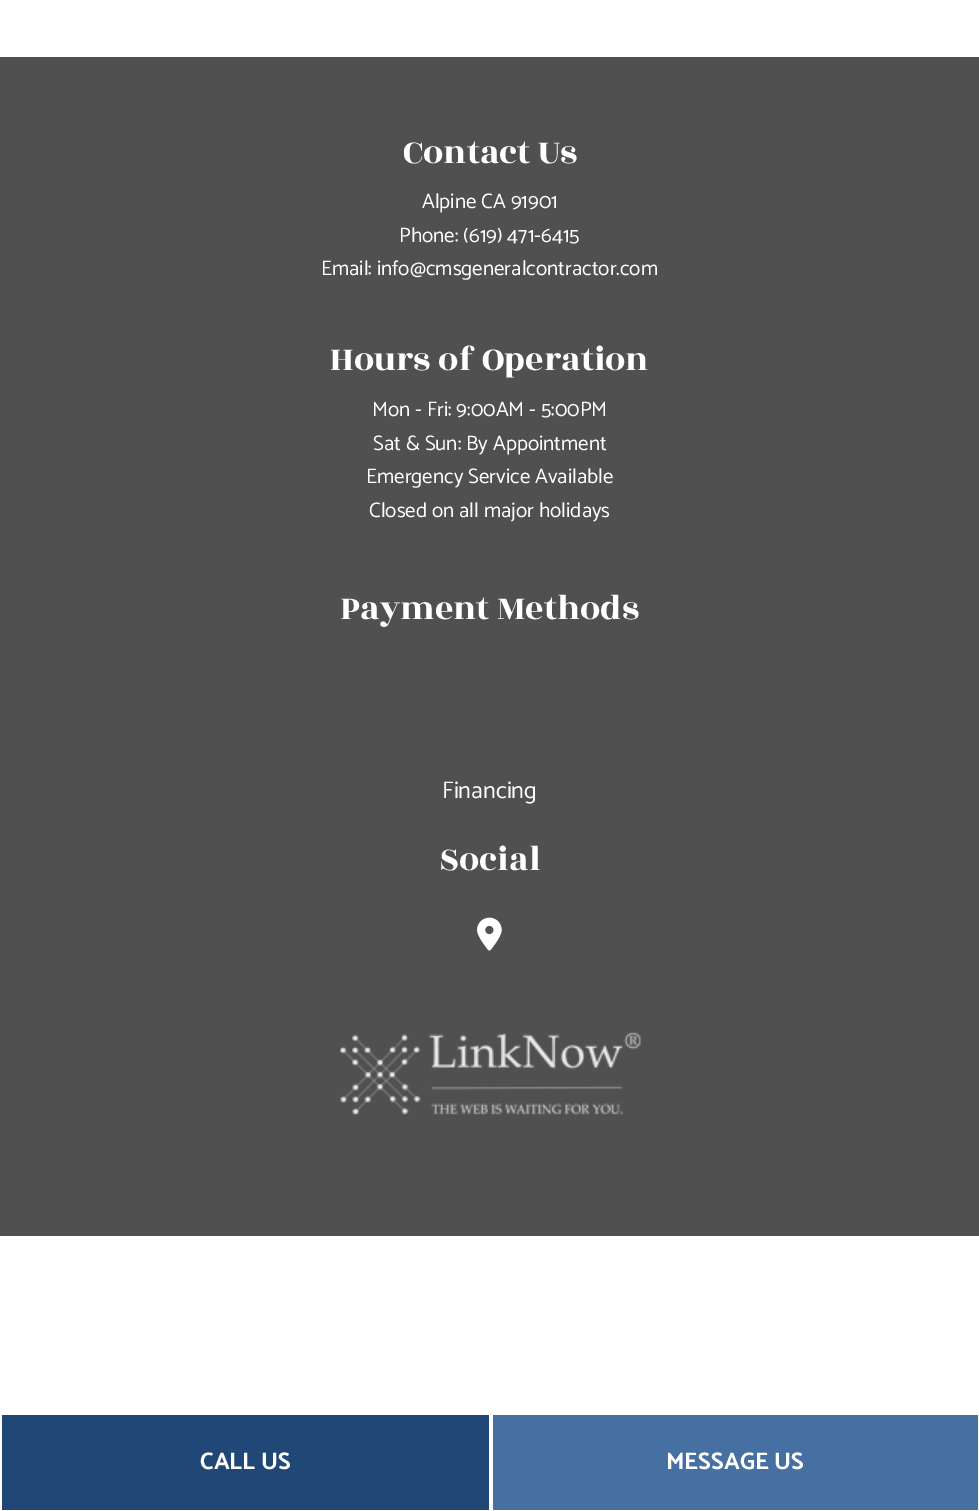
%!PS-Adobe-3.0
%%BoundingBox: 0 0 979 1511
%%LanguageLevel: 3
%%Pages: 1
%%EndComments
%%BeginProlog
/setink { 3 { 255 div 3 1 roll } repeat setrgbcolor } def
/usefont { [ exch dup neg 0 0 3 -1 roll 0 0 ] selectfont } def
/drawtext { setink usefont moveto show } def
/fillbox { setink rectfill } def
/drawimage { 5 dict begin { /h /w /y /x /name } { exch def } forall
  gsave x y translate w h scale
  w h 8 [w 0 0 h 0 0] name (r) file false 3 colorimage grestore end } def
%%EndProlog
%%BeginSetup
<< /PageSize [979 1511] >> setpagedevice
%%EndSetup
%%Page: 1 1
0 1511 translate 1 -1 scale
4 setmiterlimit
0 0 979 1511 255 255 255 fillbox
0 57 979 1179 80 80 80 fillbox
(Contact Us) 403 163 /RozhaOne-Regular 36 255 255 255 drawtext
(Alpine CA 91901) 422 208 /Catamaran-Regular 21 255 255 255 drawtext
(Phone: \(619\) 471-6415) 399 242 /Catamaran-Regular 21 255 255 255 drawtext
(Email: info@cmsgeneralcontractor.com) 321 275 /Catamaran-Regular 21 255 255 255 drawtext
(Hours of Operation) 330 370 /RozhaOne-Regular 36 255 255 255 drawtext
(Mon - Fri: 9:00AM - 5:00PM) 372 416 /Catamaran-Regular 21 255 255 255 drawtext
(Sat & Sun: By Appointment) 373 450 /Catamaran-Regular 21 255 255 255 drawtext
(Emergency Service Available) 366 483 /Catamaran-Regular 21 255 255 255 drawtext
(Closed on all major holidays) 369 517 /Catamaran-Regular 21 255 255 255 drawtext
(Payment Methods) 340 619 /RozhaOne-Regular 36 255 255 255 drawtext
(Financing) 442 798 /Catamaran-Regular 24 255 255 255 drawtext
(Social) 439 870 /RozhaOne-Regular 36 255 255 255 drawtext
(assets/img1.rgb) 477 917 25 34 drawimage
(assets/img2.rgb) 340 1032 301 83 drawimage
2 1415 487 95 33 71 119 fillbox
(CALL US) 200 1469 /Catamaran-Bold 24 255 255 255 drawtext
493 1415 485 95 70 111 162 fillbox
(MESSAGE US) 666 1469 /Catamaran-Bold 24 255 255 255 drawtext
showpage
%%EOF
